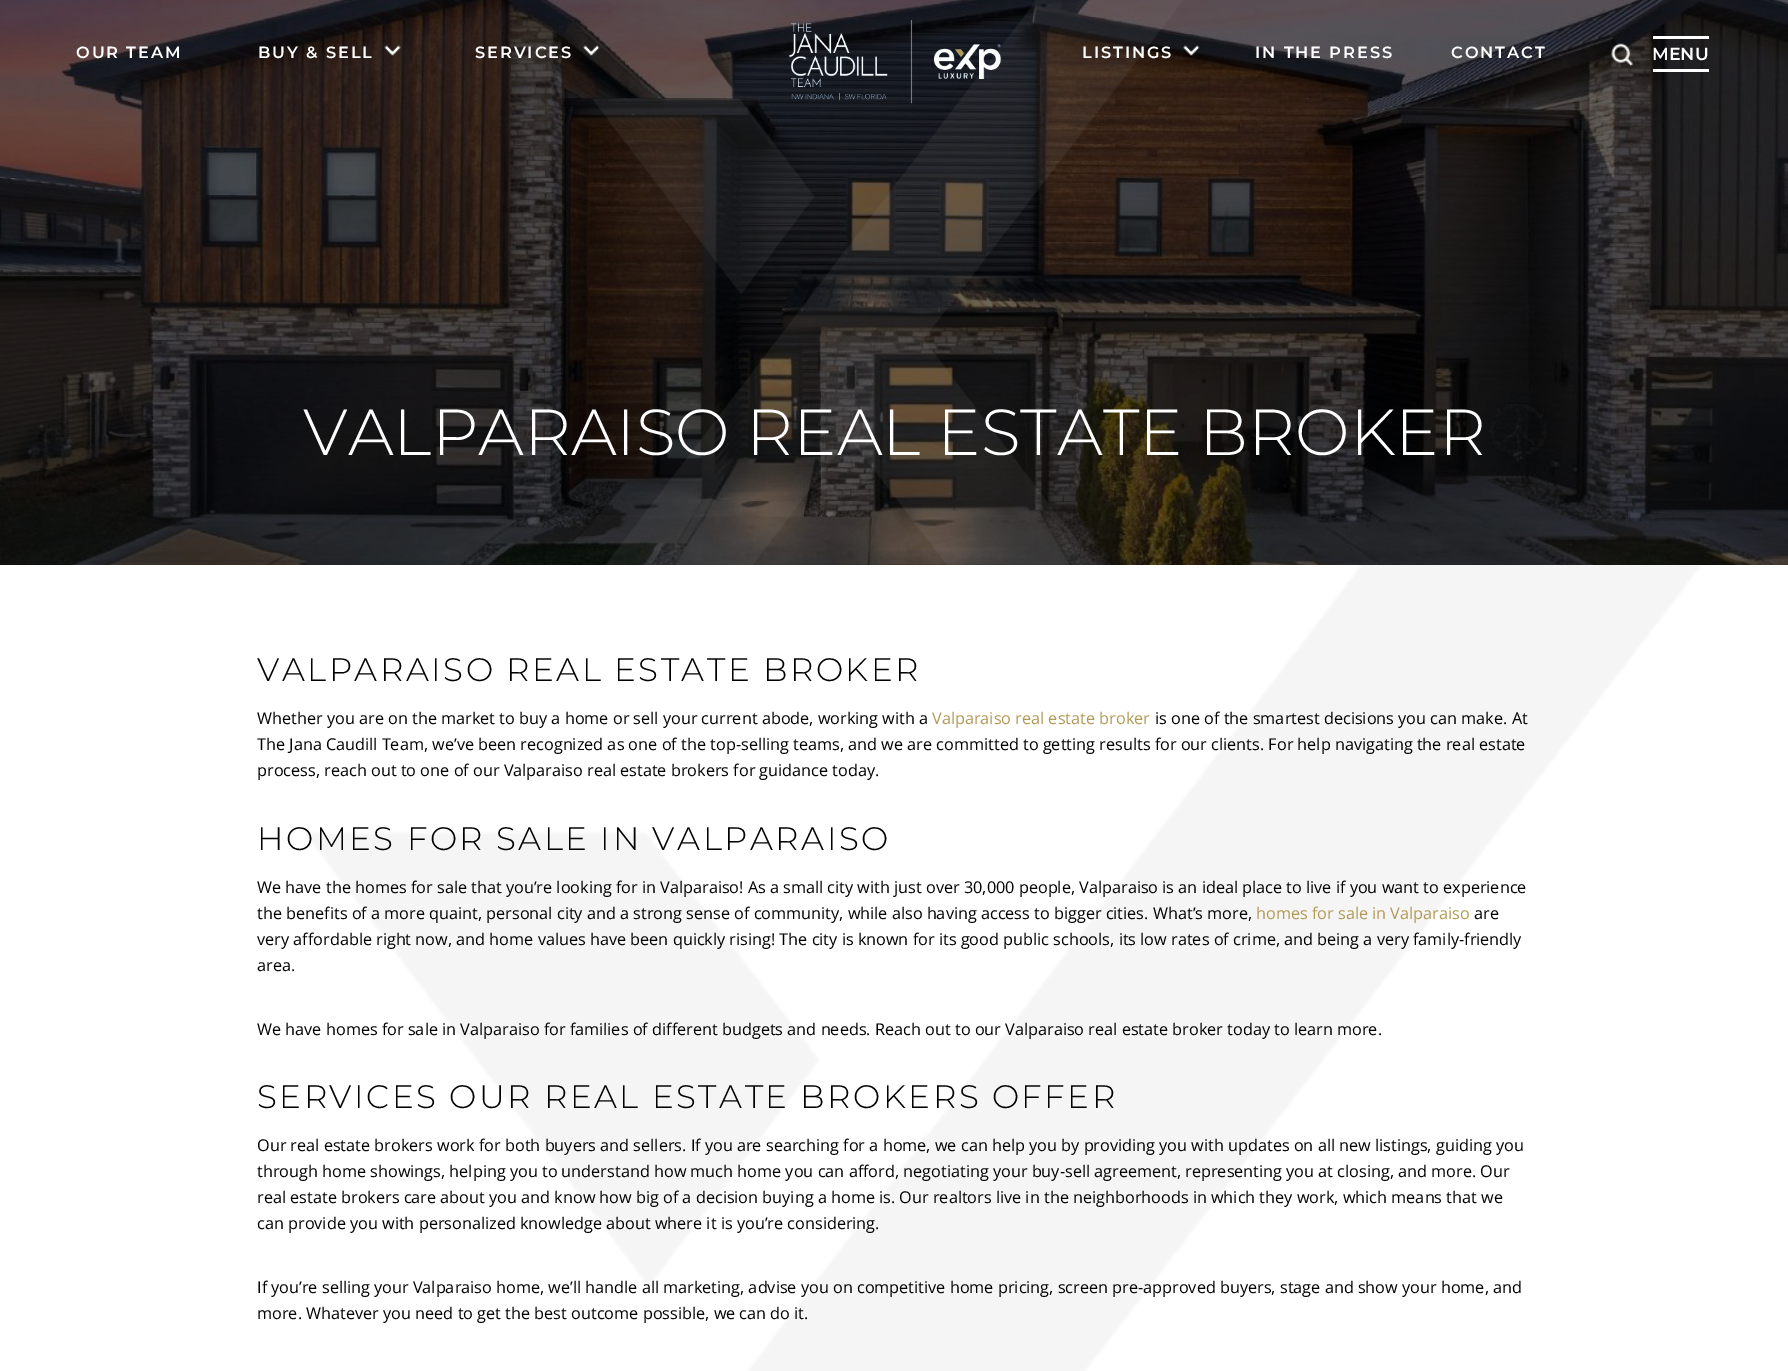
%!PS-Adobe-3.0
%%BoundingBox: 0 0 1788 1371
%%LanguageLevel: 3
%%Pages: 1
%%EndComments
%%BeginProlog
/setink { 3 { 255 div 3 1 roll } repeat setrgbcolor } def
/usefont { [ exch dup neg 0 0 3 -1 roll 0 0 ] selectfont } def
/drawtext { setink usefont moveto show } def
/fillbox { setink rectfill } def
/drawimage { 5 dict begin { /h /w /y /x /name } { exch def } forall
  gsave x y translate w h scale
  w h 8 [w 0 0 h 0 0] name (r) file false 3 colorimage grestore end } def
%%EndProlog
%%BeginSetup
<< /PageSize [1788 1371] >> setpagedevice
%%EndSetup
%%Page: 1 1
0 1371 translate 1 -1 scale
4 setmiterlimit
0 0 1788 1371 255 255 255 fillbox
(assets/img6.rgb) 0 0 1788 565 drawimage
(assets/img7.rgb) 592 0 592 565 drawimage
(assets/img1.rgb) 788 20 214 84 drawimage
/Montserrat-SemiBold 16.25 usefont
76 58 moveto 1.9 0 (OUR TEAM) ashow
258 58 moveto 1.9 0 (BUY & SELL) ashow
(assets/img2.rgb) 384 45 17 11 drawimage
475 58 moveto 1.9 0 (SERVICES) ashow
(assets/img3.rgb) 583 45 17 11 drawimage
1082 58 moveto 1.9 0 (LISTINGS) ashow
(assets/img4.rgb) 1183 45 17 11 drawimage
1255 58 moveto 1.9 0 (IN THE PRESS) ashow
1451 58 moveto 1.9 0 (CONTACT) ashow
(assets/img5.rgb) 1611 43 22 24 drawimage
(MENU) 1652 60 /Montserrat-SemiBold 17.5 255 255 255 drawtext
1653 36 56 3 255 255 255 fillbox
1653 69 56 3 255 255 255 fillbox
(VALPARAISO REAL ESTATE BROKER) 303 455 /Montserrat-Light 65 255 255 255 drawtext
(assets/img8.rgb) 305 565 1396 806 drawimage
/Montserrat-Light 32.5 usefont
0 0 0 setink
257 681 moveto 2.5 0 (VALPARAISO REAL ESTATE BROKER) ashow
(Whether you are on the market to buy a home or sell your current abode, working with a) 257 724 /OpenSans-Regular 16.25 0 0 0 drawtext
(Valparaiso real estate broker) 932 724 /OpenSans-Regular 16.25 177 154 85 drawtext
(is one of the smartest decisions you can make. At) 1155 724 /OpenSans-Regular 16.25 0 0 0 drawtext
(The Jana Caudill Team, we’ve been recognized as one of the top-selling teams, and we are committed to getting results for our clients. For help navigating the real estate) 257 750 /OpenSans-Regular 16.25 0 0 0 drawtext
(process, reach out to one of our Valparaiso real estate brokers for guidance today.) 257 776 /OpenSans-Regular 16.25 0 0 0 drawtext
/Montserrat-Light 32.5 usefont
257 850 moveto 2.5 0 (HOMES FOR SALE IN VALPARAISO) ashow
(We have the homes for sale that you’re looking for in Valparaiso! As a small city with just over 30,000 people, Valparaiso is an ideal place to live if you want to experience) 257 893 /OpenSans-Regular 16.25 0 0 0 drawtext
(the benefits of a more quaint, personal city and a strong sense of community, while also having access to bigger cities. What’s more,) 257 919 /OpenSans-Regular 16.25 0 0 0 drawtext
(homes for sale in Valparaiso) 1256 919 /OpenSans-Regular 16.25 177 154 85 drawtext
(are) 1474 919 /OpenSans-Regular 16.25 0 0 0 drawtext
(very affordable right now, and home values have been quickly rising! The city is known for its good public schools, its low rates of crime, and being a very family-friendly) 257 945 /OpenSans-Regular 16.25 0 0 0 drawtext
(area.) 257 971 /OpenSans-Regular 16.25 0 0 0 drawtext
(We have homes for sale in Valparaiso for families of different budgets and needs. Reach out to our Valparaiso real estate broker today to learn more.) 257 1035 /OpenSans-Regular 16.25 0 0 0 drawtext
/Montserrat-Light 32.5 usefont
257 1108 moveto 2.5 0 (SERVICES OUR REAL ESTATE BROKERS OFFER) ashow
(Our real estate brokers work for both buyers and sellers. If you are searching for a home, we can help you by providing you with updates on all new listings, guiding you) 257 1151 /OpenSans-Regular 16.25 0 0 0 drawtext
(through home showings, helping you to understand how much home you can afford, negotiating your buy-sell agreement, representing you at closing, and more. Our) 257 1177 /OpenSans-Regular 16.25 0 0 0 drawtext
(real estate brokers care about you and know how big of a decision buying a home is. Our realtors live in the neighborhoods in which they work, which means that we) 257 1203 /OpenSans-Regular 16.25 0 0 0 drawtext
(can provide you with personalized knowledge about where it is you’re considering.) 257 1229 /OpenSans-Regular 16.25 0 0 0 drawtext
(If you’re selling your Valparaiso home, we’ll handle all marketing, advise you on competitive home pricing, screen pre-approved buyers, stage and show your home, and) 257 1293 /OpenSans-Regular 16.25 0 0 0 drawtext
(more. Whatever you need to get the best outcome possible, we can do it.) 257 1319 /OpenSans-Regular 16.25 0 0 0 drawtext
showpage
%%EOF
